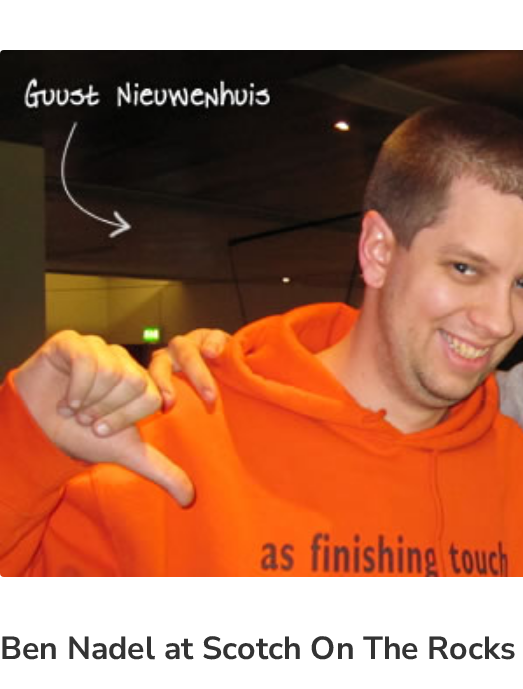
%!PS-Adobe-3.0
%%BoundingBox: 0 0 523 689
%%LanguageLevel: 3
%%Pages: 1
%%EndComments
%%BeginProlog
/setink { 3 { 255 div 3 1 roll } repeat setrgbcolor } def
/usefont { [ exch dup neg 0 0 3 -1 roll 0 0 ] selectfont } def
/drawtext { setink usefont moveto show } def
/fillbox { setink rectfill } def
/drawimage { 5 dict begin { /h /w /y /x /name } { exch def } forall
  gsave x y translate w h scale
  w h 8 [w 0 0 h 0 0] name (r) file false 3 colorimage grestore end } def
%%EndProlog
%%BeginSetup
<< /PageSize [523 689] >> setpagedevice
%%EndSetup
%%Page: 1 1
0 689 translate 1 -1 scale
4 setmiterlimit
0 0 523 689 255 255 255 fillbox
(assets/img1.rgb) 0 50 523 527 drawimage
(Ben Nadel at Scotch On The Rocks) 0 659 /NunitoSans-Bold 32 51 51 51 drawtext
showpage
%%EOF
